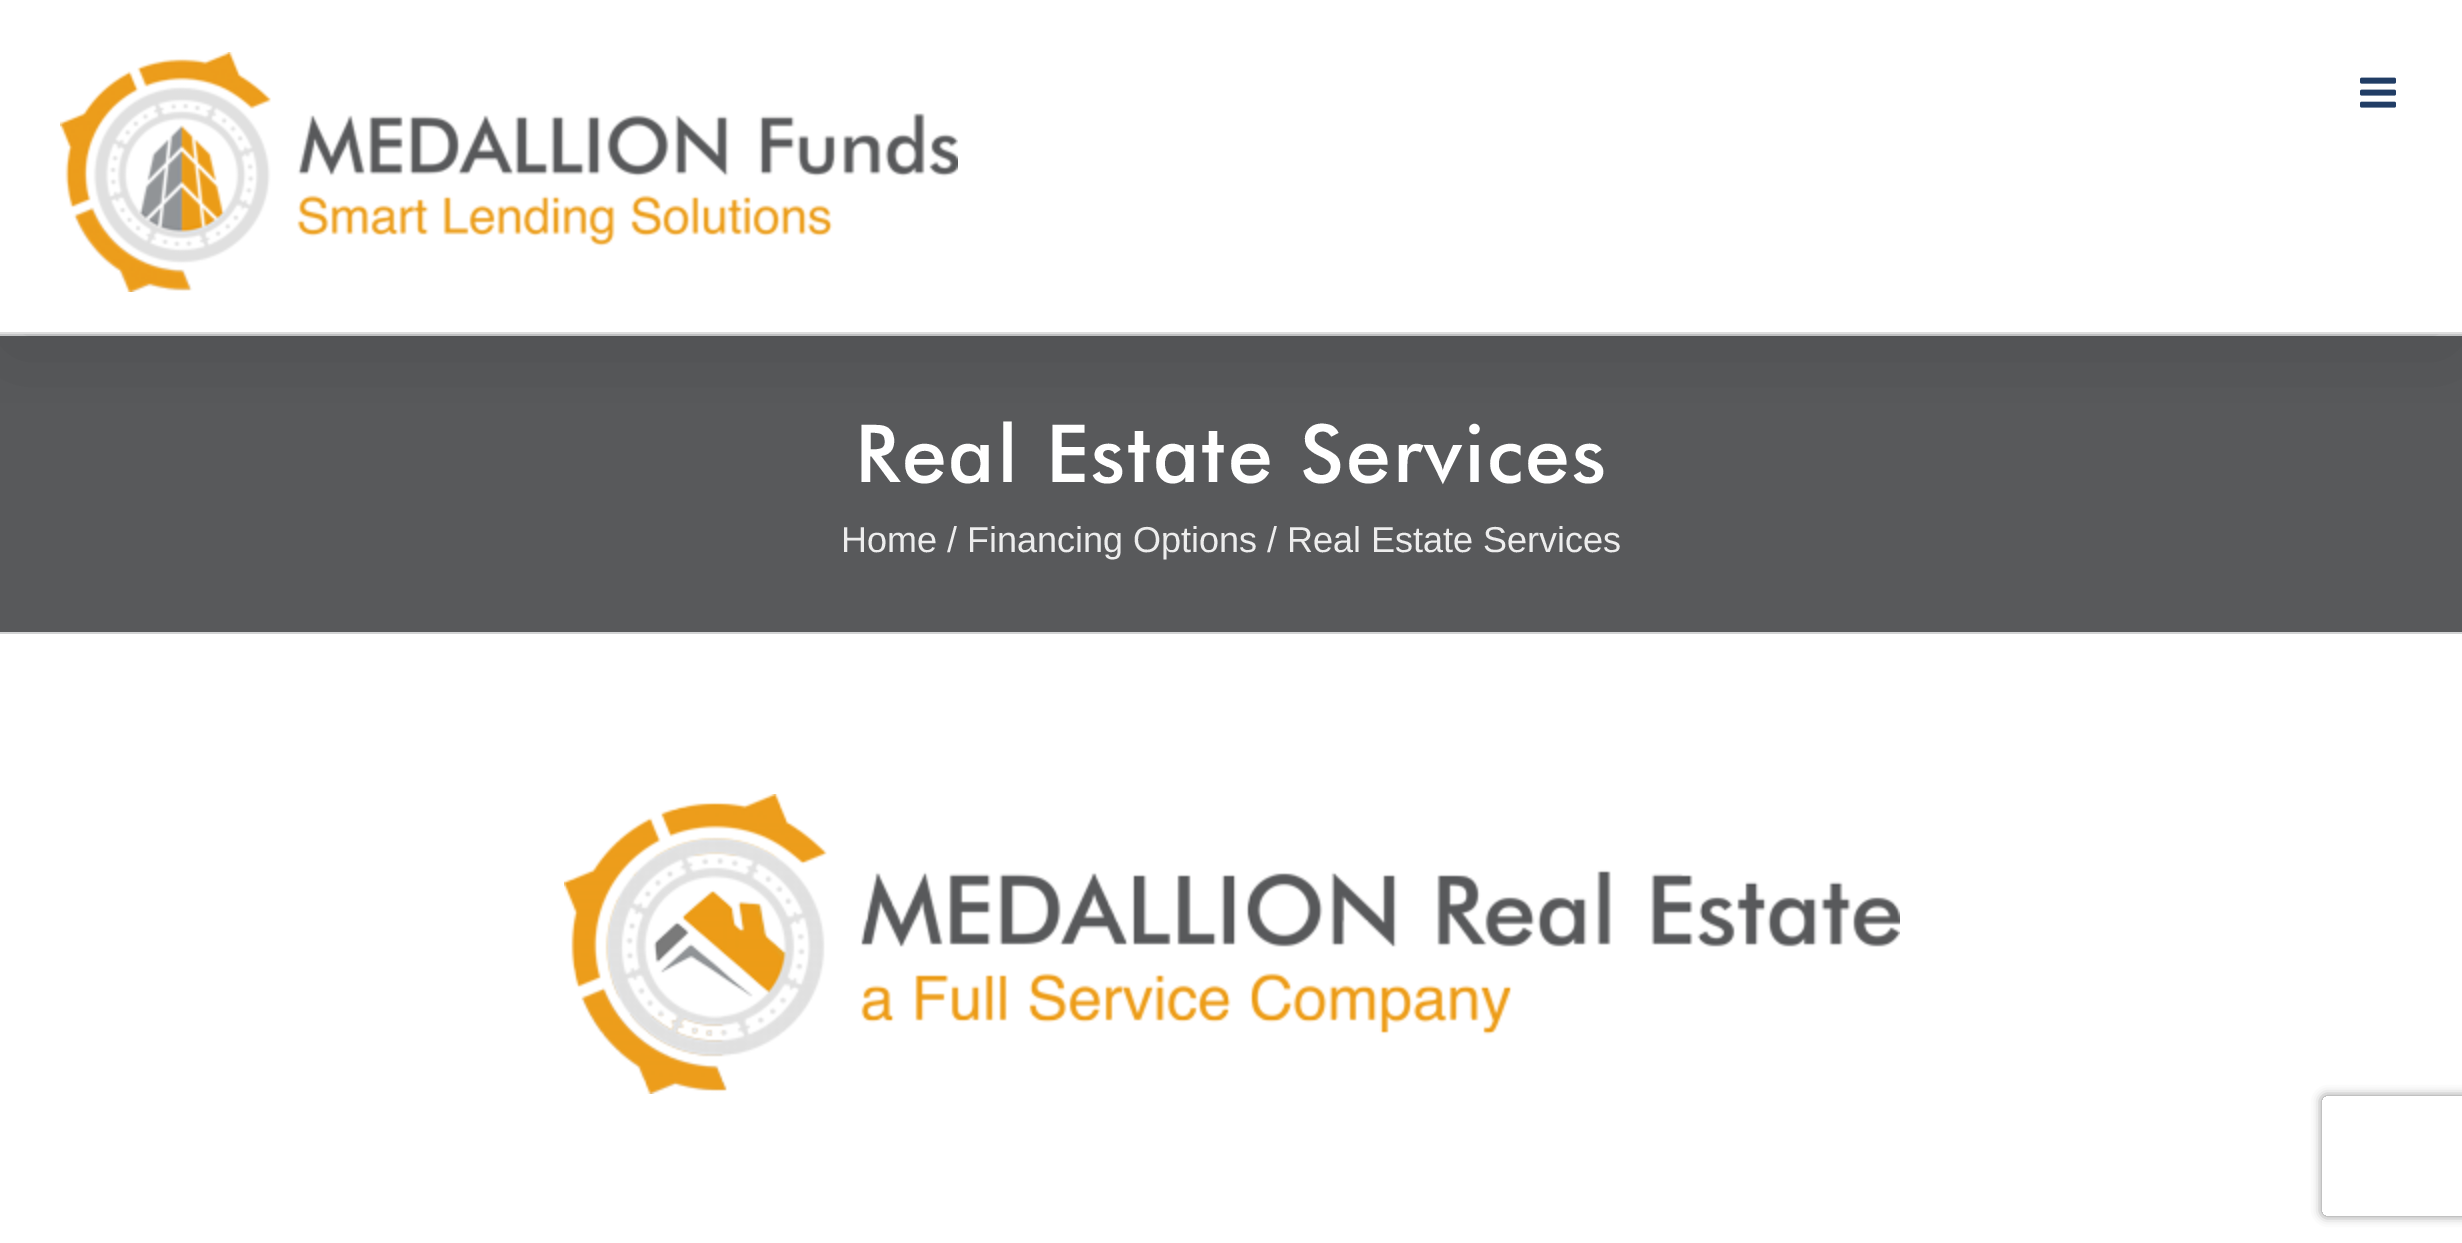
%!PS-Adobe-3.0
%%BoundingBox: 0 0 2462 1243
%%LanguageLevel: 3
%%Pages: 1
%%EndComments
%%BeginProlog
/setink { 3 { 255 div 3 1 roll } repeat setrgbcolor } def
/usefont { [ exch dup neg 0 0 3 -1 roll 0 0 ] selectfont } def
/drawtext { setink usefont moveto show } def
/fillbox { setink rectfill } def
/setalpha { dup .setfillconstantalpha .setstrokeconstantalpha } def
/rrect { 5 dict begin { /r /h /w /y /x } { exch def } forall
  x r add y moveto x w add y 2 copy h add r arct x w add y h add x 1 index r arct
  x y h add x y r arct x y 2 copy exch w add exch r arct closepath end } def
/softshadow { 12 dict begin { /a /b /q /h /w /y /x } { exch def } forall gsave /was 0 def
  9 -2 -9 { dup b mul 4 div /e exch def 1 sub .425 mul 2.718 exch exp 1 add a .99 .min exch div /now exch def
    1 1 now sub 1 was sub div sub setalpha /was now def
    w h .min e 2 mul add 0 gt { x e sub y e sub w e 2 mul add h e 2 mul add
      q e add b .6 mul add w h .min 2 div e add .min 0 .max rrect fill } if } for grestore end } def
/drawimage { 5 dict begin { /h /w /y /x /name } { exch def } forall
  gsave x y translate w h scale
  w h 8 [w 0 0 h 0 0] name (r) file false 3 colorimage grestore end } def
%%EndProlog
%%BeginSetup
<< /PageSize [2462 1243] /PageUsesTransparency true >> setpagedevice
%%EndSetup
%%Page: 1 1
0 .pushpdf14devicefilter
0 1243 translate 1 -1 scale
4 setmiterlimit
0 0 2462 1243 255 255 255 fillbox
0 336 2462 296 88 89 91 fillbox
0 334 2462 2 210 211 212 fillbox
gsave
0 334 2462 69 rectclip
0 0 0 setink
4 24 2454 326 0 50 0.14 softshadow
grestore
0 332 2462 2 221 221 221 fillbox
(assets/img1.rgb) 60 52 898 240 drawimage
(assets/img2.rgb) 2360 77 36 31 drawimage
0 632 2462 2 210 211 212 fillbox
/Futura-Medium 80 usefont
255 255 255 setink
855 482 moveto 2 0 (Real Estate Services) ashow
(Home / Financing Options / Real Estate Services) 841 552 /LiberationSans-Regular 36 237 237 237 drawtext
(assets/img3.rgb) 564 794 1336 300 drawimage
gsave
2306 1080 moveto 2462 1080 lineto 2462 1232 lineto 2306 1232 lineto closepath 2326 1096 moveto 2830 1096 lineto 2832 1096 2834 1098 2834 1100 curveto 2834 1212 lineto 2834 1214 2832 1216 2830 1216 curveto 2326 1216 lineto 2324 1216 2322 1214 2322 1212 curveto 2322 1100 lineto 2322 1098 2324 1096 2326 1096 curveto closepath eoclip newpath
128 128 128 setink
2322 1096 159 120 4 5 1 softshadow
grestore
.poppdf14devicefilter showpage
%%EOF
